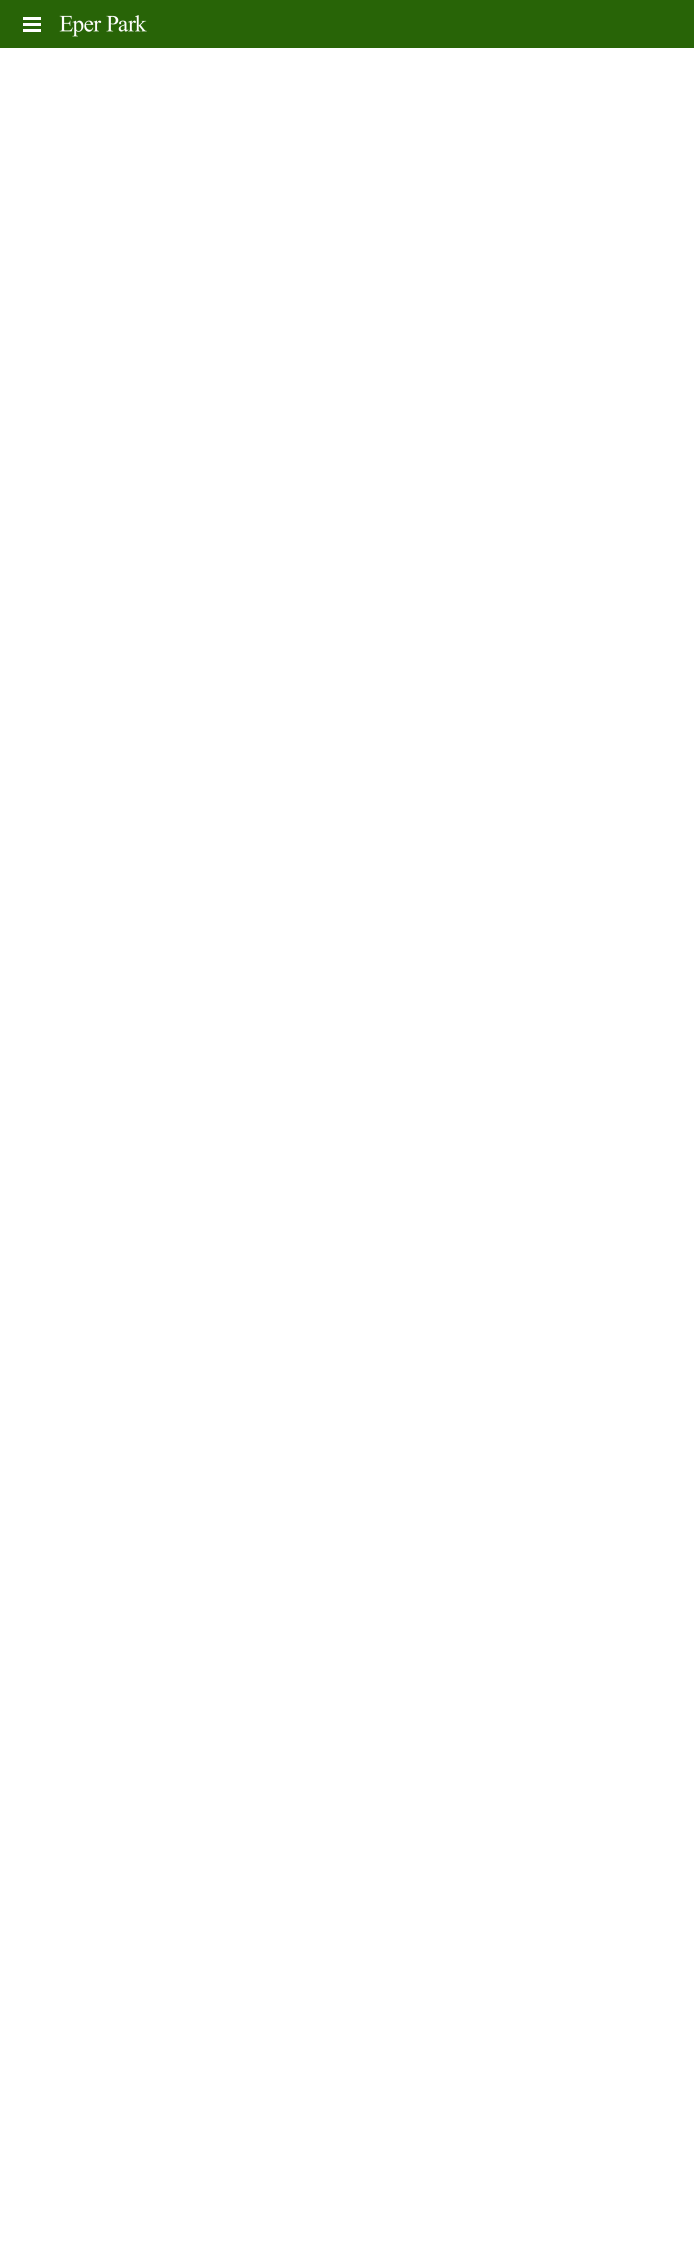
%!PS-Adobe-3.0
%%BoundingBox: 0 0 694 2268
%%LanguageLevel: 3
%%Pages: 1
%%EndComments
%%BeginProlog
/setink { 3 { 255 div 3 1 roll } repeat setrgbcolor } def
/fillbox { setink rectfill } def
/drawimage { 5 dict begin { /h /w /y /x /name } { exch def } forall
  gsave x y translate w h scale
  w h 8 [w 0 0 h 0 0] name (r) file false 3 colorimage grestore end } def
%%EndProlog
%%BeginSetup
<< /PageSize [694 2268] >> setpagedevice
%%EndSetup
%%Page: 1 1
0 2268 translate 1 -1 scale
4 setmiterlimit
0 0 694 2268 255 255 255 fillbox
0 0 694 48 40 100 7 fillbox
23 17 18 3 255 255 255 fillbox
23 23 18 3 255 255 255 fillbox
23 29 18 3 255 255 255 fillbox
(assets/img1.rgb) 59 15 88 22 drawimage
showpage
%%EOF
